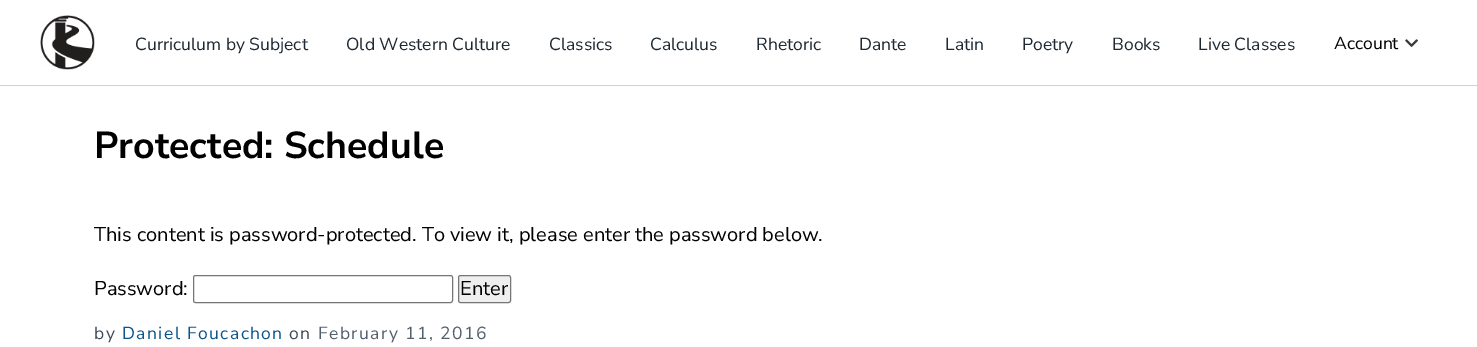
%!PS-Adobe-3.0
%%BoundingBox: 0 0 1477 347
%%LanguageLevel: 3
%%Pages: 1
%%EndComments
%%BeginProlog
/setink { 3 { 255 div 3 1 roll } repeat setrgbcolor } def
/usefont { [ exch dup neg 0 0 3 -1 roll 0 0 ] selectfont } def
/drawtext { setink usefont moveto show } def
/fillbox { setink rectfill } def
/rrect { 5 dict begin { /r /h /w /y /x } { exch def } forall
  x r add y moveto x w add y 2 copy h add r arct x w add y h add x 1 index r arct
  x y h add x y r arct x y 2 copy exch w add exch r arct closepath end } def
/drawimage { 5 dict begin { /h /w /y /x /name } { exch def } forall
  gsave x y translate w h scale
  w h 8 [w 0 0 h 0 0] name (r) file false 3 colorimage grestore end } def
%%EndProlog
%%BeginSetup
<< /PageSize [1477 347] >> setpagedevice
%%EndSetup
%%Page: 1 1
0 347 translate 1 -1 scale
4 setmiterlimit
0 0 1477 347 255 255 255 fillbox
0 85 1477 1 203 210 217 fillbox
(assets/img1.rgb) 40 15 55 55 drawimage
(Curriculum by Subject) 135 50 /NunitoSans-Regular 17.5 31 41 51 drawtext
(Old Western Culture) 346 50 /NunitoSans-Regular 17.5 31 41 51 drawtext
(Classics) 549 50 /NunitoSans-Regular 17.5 31 41 51 drawtext
(Calculus) 650 50 /NunitoSans-Regular 17.5 31 41 51 drawtext
(Rhetoric) 756 50 /NunitoSans-Regular 17.5 31 41 51 drawtext
(Dante) 859 50 /NunitoSans-Regular 17.5 31 41 51 drawtext
(Latin) 945 50 /NunitoSans-Regular 17.5 31 41 51 drawtext
(Poetry) 1022 50 /NunitoSans-Regular 17.5 31 41 51 drawtext
(Books) 1112 50 /NunitoSans-Regular 17.5 31 41 51 drawtext
(Live Classes) 1198 50 /NunitoSans-Regular 17.5 31 41 51 drawtext
(Account) 1334 49 /NunitoSans-Regular 17.5 0 0 0 drawtext
(assets/img2.rgb) 1405 39 13 8 drawimage
(Protected: Schedule) 94 158 /NunitoSans-Bold 37.5 0 0 0 drawtext
(This content is password-protected. To view it, please enter the password below.) 94 241 /NunitoSans-Regular 20 0 0 0 drawtext
(Password:) 94 295 /NunitoSans-Regular 20 0 0 0 drawtext
118 118 118 setink
193.5 275.5 259 27 2 rrect stroke
239 239 239 setink
458.5 275.5 52 27 2 rrect gsave fill grestore
118 118 118 setink
stroke
(Enter) 460 295 /NunitoSans-Regular 20 0 0 0 drawtext
/NunitoSans-Regular 17.5 usefont
62 76 89 setink
94 339 moveto 1.4 0 (by) ashow
10 85 140 setink
122 339 moveto 1.4 0 (Daniel Foucachon) ashow
62 76 89 setink
289 339 moveto 1.4 0 (on) ashow
82 96 109 setink
318 339 moveto 1.4 0 (February 11, 2016) ashow
showpage
%%EOF
